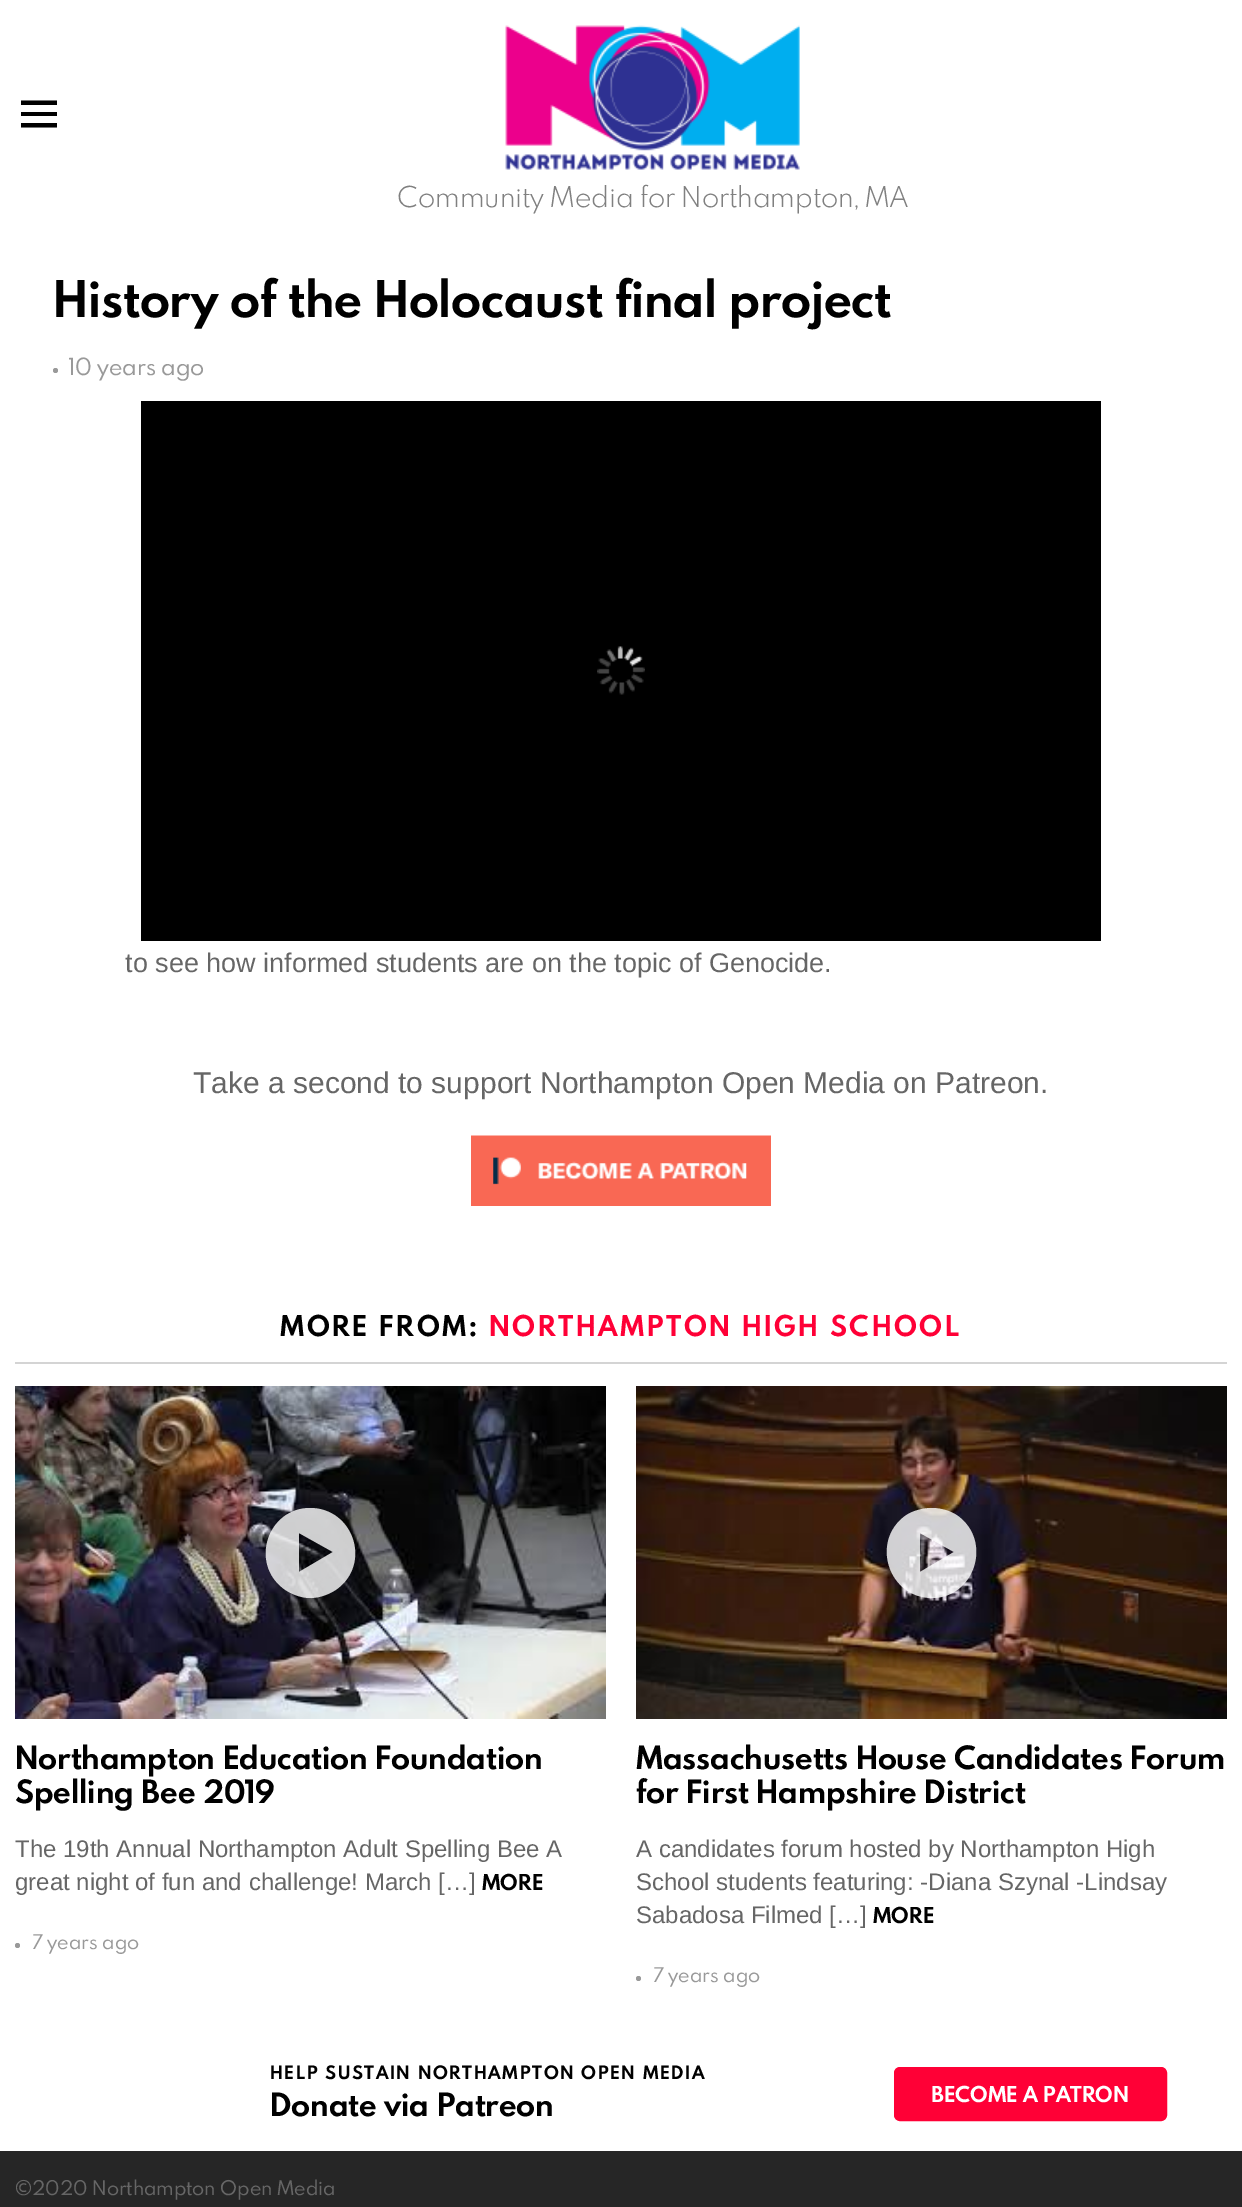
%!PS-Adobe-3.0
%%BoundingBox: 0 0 1242 2207
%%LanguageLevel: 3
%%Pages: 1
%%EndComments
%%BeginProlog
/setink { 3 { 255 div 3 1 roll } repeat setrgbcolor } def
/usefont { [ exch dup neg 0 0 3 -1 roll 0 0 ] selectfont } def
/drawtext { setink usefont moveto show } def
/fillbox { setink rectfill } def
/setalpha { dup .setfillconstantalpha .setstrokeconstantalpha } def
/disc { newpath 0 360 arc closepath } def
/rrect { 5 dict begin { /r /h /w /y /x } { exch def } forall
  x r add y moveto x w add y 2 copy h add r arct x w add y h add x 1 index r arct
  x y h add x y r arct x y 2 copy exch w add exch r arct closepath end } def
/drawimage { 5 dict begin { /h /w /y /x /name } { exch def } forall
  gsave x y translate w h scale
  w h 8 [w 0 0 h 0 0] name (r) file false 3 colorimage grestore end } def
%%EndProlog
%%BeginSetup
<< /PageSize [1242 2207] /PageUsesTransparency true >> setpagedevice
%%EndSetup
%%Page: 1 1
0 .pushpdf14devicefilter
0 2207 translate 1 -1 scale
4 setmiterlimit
0 0 1242 2207 255 255 255 fillbox
0 0 0 setink
21 100.5 moveto 57 100.5 lineto 57 105 lineto 21 105 lineto closepath 21 112 moveto 57 112 lineto 57 116 lineto 21 116 lineto closepath 21 123 moveto 57 123 lineto 57 127.5 lineto 21 127.5 lineto closepath fill
(assets/img1.rgb) 505 25 295 145 drawimage
(Community Media for Northampton, MA) 397 207 /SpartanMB-Light 25.5 128 128 128 drawtext
(History of the Holocaust final project) 53 317 /SpartanMB-Bold 45 0 0 0 drawtext
153 153 153 setink
55.5 370.5 2.5 disc fill
(10 years ago) 69 375 /SpartanMB-Regular 21 153 153 153 drawtext
141 401 960 540 0 0 0 fillbox
(assets/img2.rgb) 597 646 48 49 drawimage
(to see how informed students are on the topic of Genocide.) 125 972 /LiberationSans-Regular 27 102 102 102 drawtext
(Take a second to support Northampton Open Media on Patreon.) 193 1093 /LiberationSans-Regular 30 102 102 102 drawtext
(assets/img3.rgb) 471 1135 300 71 drawimage
/SpartanMB-Bold 25.5 usefont
0 0 0 setink
280 1336 moveto 2.55 0 (MORE FROM:) ashow
255 0 54 setink
489 1336 moveto 2.55 0 (NORTHAMPTON HIGH SCHOOL) ashow
15 1362 1212 2 212 212 212 fillbox
(assets/img4.rgb) 15 1386 591 333 drawimage
0.8 setalpha
255 255 255 setink
310 1508 moveto 268 1508 249 1563 284 1589 curveto 291 1594 301 1598 310 1598 curveto 320 1598 330 1594 337 1589 curveto 372 1563 353 1508 310 1508 curveto closepath 299 1572 moveto 299 1533 lineto 333 1552 lineto closepath fill
1 setalpha
(Northampton Education Foundation) 15 1769 /SpartanMB-Bold 28.5 0 0 0 drawtext
(Spelling Bee 2019) 15 1803 /SpartanMB-Bold 28.5 0 0 0 drawtext
(The 19th Annual Northampton Adult Spelling Bee A) 15 1857 /LiberationSans-Regular 24 102 102 102 drawtext
(great night of fun and challenge! March […]) 15 1890 /LiberationSans-Regular 24 102 102 102 drawtext
(MORE) 482 1890 /SpartanMB-Bold 19.5 0 0 0 drawtext
153 153 153 setink
17.5 1945.5 2.5 disc fill
(7 years ago) 32 1949 /SpartanMB-Regular 18 153 153 153 drawtext
(assets/img5.rgb) 636 1386 591 333 drawimage
0.8 setalpha
255 255 255 setink
932 1508 moveto 922 1508 912 1511 905 1516 curveto 870 1542 889 1598 932 1598 curveto 974 1598 993 1542 958 1516 curveto 951 1511 941 1508 932 1508 curveto closepath 920 1572 moveto 920 1533 lineto 954 1552 lineto closepath fill
1 setalpha
(Massachusetts House Candidates Forum) 636 1769 /SpartanMB-Bold 28.5 0 0 0 drawtext
(for First Hampshire District) 636 1803 /SpartanMB-Bold 28.5 0 0 0 drawtext
(A candidates forum hosted by Northampton High) 636 1857 /LiberationSans-Regular 24 102 102 102 drawtext
(School students featuring: -Diana Szynal -Lindsay) 636 1890 /LiberationSans-Regular 24 102 102 102 drawtext
(Sabadosa Filmed […]) 636 1923 /LiberationSans-Regular 24 102 102 102 drawtext
(MORE) 873 1923 /SpartanMB-Bold 19.5 0 0 0 drawtext
153 153 153 setink
638.5 1978.5 2.5 disc fill
(7 years ago) 653 1982 /SpartanMB-Regular 18 153 153 153 drawtext
/SpartanMB-Bold 16.5 usefont
0 0 0 setink
270 2079 moveto 1.65 0 (HELP SUSTAIN NORTHAMPTON OPEN MEDIA) ashow
(Donate via Patreon) 270 2116 /SpartanMB-Bold 28.5 0 0 0 drawtext
255 0 54 setink
895.5 2068.5 270 51 4.5 rrect gsave fill grestore
3 setlinewidth
stroke
(BECOME A PATRON) 931 2102 /SpartanMB-Bold 19.5 255 255 255 drawtext
0 2151 1242 56 38 38 38 fillbox
(©2020 Northampton Open Media) 15 2195 /SpartanMB-Regular 18 102 102 102 drawtext
.poppdf14devicefilter showpage
%%EOF
